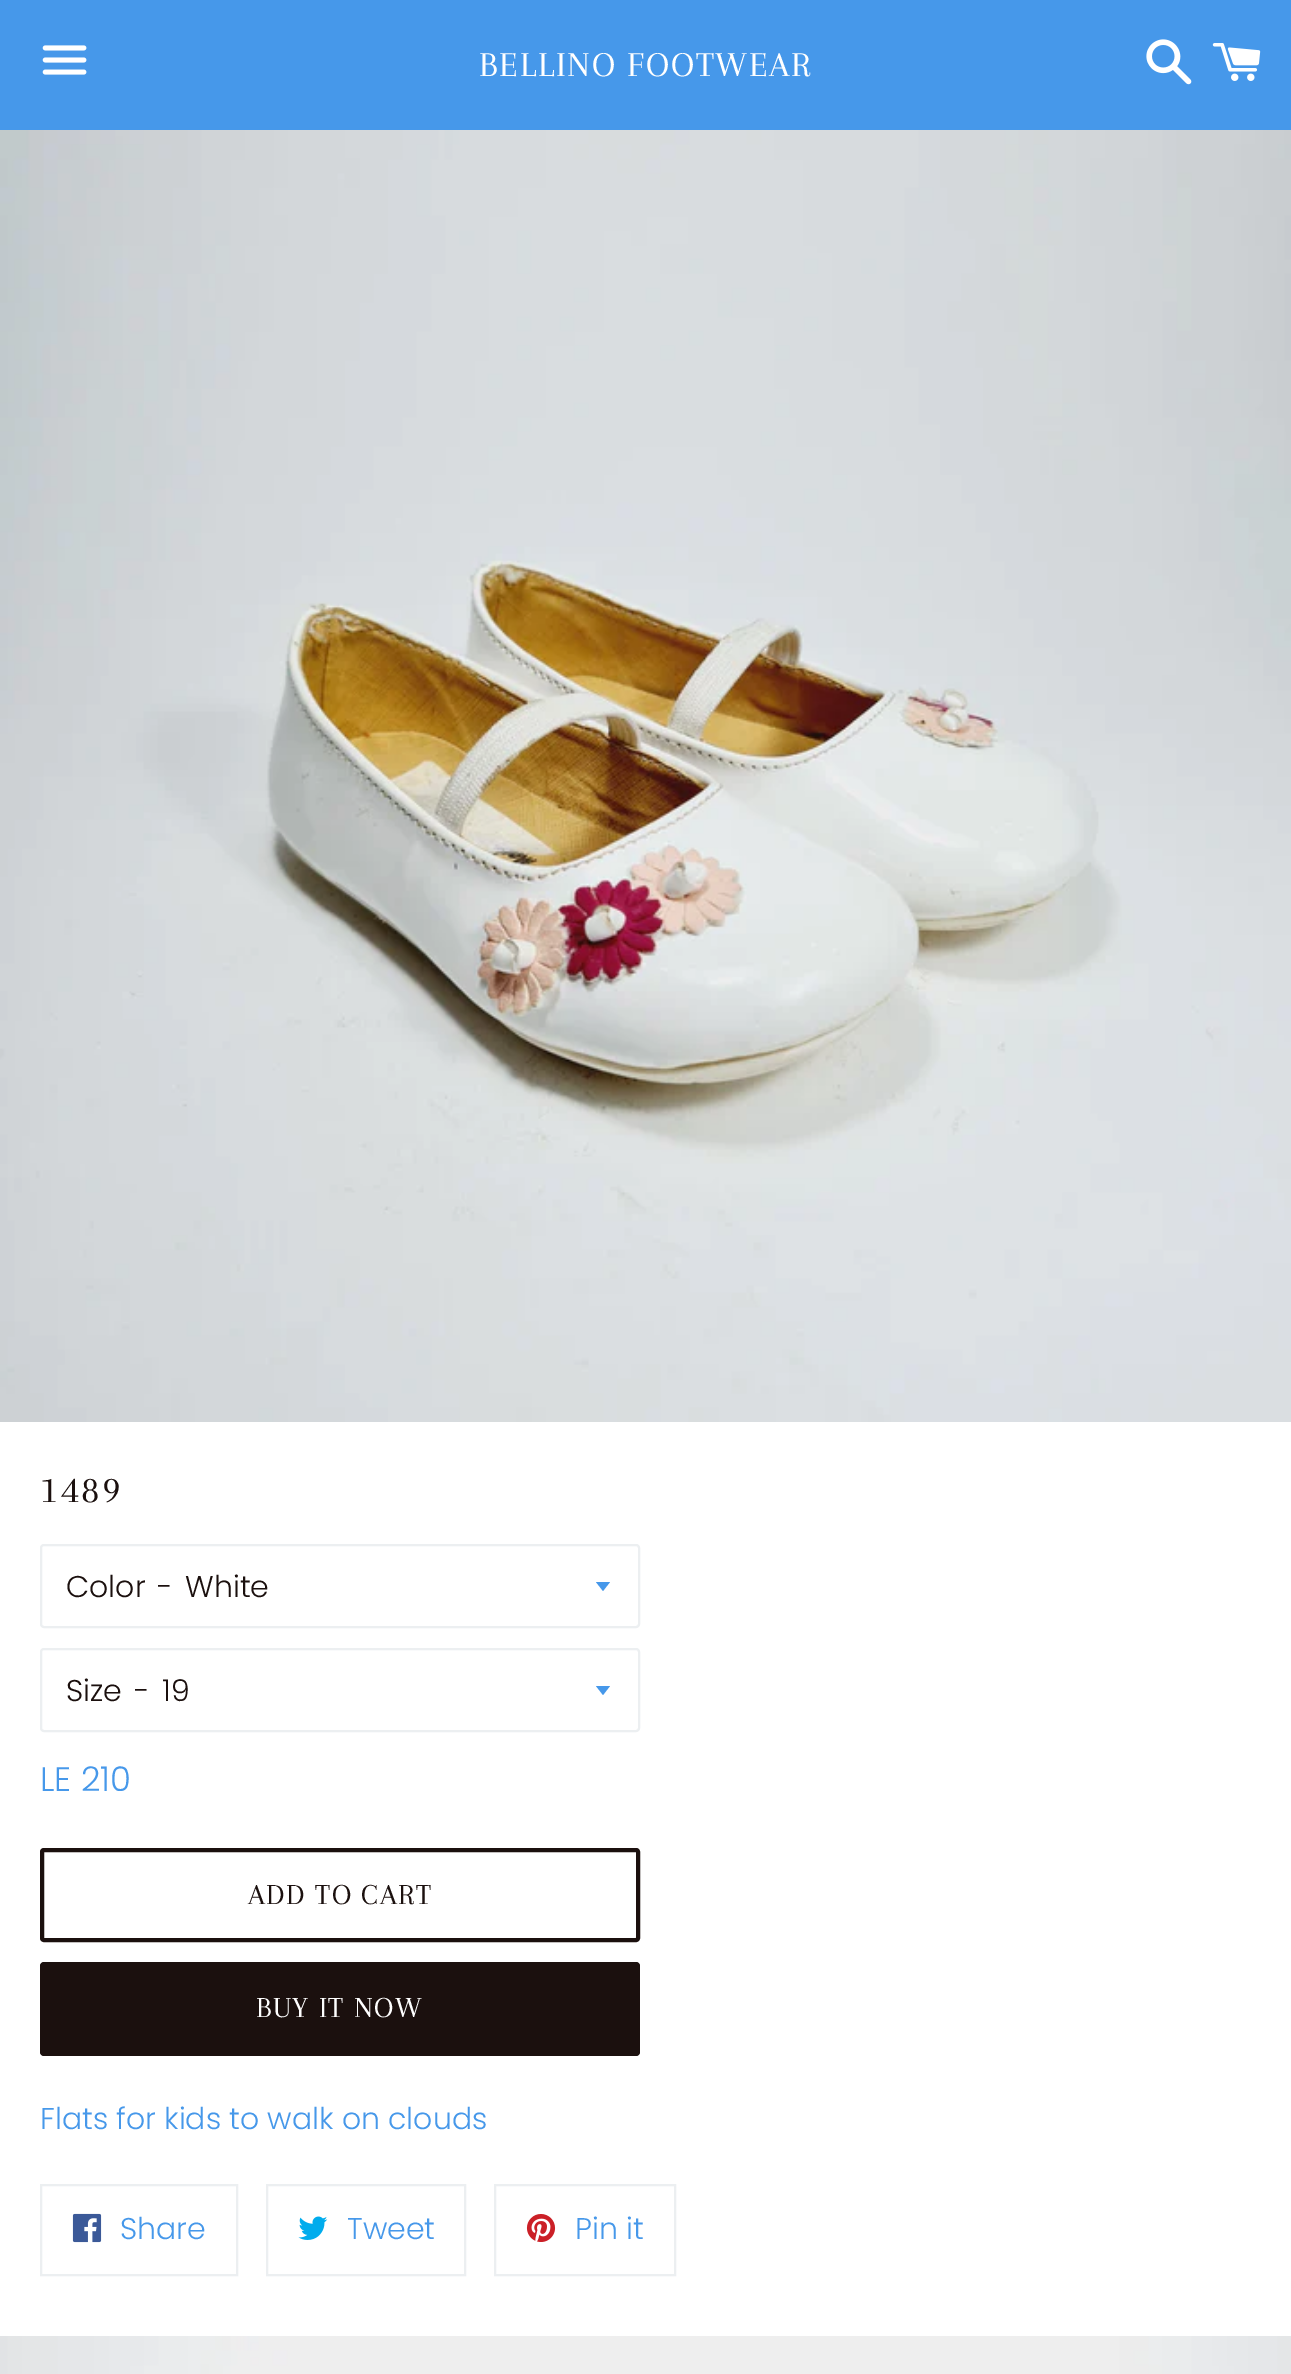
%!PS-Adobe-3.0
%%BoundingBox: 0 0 1291 2374
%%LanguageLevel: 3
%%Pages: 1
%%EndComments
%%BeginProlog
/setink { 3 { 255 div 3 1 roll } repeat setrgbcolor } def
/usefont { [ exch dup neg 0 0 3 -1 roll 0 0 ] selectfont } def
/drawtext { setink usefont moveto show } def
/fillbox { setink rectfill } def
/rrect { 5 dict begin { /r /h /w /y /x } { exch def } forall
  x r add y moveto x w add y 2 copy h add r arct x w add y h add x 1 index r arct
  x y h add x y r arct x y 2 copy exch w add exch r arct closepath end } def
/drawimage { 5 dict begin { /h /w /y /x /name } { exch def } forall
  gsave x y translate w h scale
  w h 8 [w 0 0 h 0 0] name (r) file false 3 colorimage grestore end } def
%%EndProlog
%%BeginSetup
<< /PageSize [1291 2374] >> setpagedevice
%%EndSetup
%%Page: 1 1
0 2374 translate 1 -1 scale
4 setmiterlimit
0 0 1291 2374 255 255 255 fillbox
0 0 1291 130 70 152 234 fillbox
(assets/img1.rgb) 42 45 45 30 drawimage
/Arapey-Regular 36 usefont
255 255 255 setink
479 76 moveto 1.75 0 (BELLINO FOOTWEAR) ashow
(assets/img2.rgb) 1146 39 46 46 drawimage
(assets/img3.rgb) 1212 43 49 38 drawimage
(assets/img4.rgb) 0 130 1291 1292 drawimage
/Arapey-Regular 40 usefont
27 16 14 setink
40 1502 moveto 2 0 (1489) ashow
236 239 241 setink
2 setlinewidth
41 1545 598 82 3 rrect stroke
(Color) 66 1597 /Poppins-Light 30 27 16 14 drawtext
(-) 157 1597 /Poppins-Light 30 27 16 14 drawtext
70 152 234 setink
596 1582 moveto 603 1591 lineto 610 1582 lineto closepath fill
(White) 185 1597 /Poppins-Light 30 27 16 14 drawtext
236 239 241 setink
41 1649 598 82 3 rrect stroke
(Size) 66 1701 /Poppins-Light 30 27 16 14 drawtext
(-) 134 1701 /Poppins-Light 30 27 16 14 drawtext
70 152 234 setink
596 1686 moveto 603 1695 lineto 610 1686 lineto closepath fill
(19) 162 1701 /Poppins-Light 30 27 16 14 drawtext
(LE 210) 40 1791 /Poppins-Light 34 70 152 234 drawtext
27 16 14 setink
4 setlinewidth
42 1850 596 90 2 rrect stroke
/Arapey-Regular 30 usefont
248 1904 moveto 1.5 0 (ADD TO CART) ashow
40 1962 600 94 4 rrect fill
255 255 255 setink
256 2017 moveto 1.5 0 (BUY IT NOW) ashow
(Flats for kids to walk on clouds) 40 2129 /Poppins-Light 30 70 152 234 drawtext
236 239 241 setink
2 setlinewidth
41 2185 196 90 rectstroke
(assets/img5.rgb) 72 2213 30 30 drawimage
(Share) 120 2239 /Poppins-Light 30 70 152 234 drawtext
236 239 241 setink
267 2185 198 90 rectstroke
(assets/img6.rgb) 298 2216 30 24 drawimage
(Tweet) 347 2239 /Poppins-Light 30 70 152 234 drawtext
236 239 241 setink
495 2185 180 90 rectstroke
(assets/img7.rgb) 526 2214 30 28 drawimage
(Pin it) 575 2239 /Poppins-Light 30 70 152 234 drawtext
(assets/img8.rgb) 0 2336 1291 38 drawimage
showpage
%%EOF
